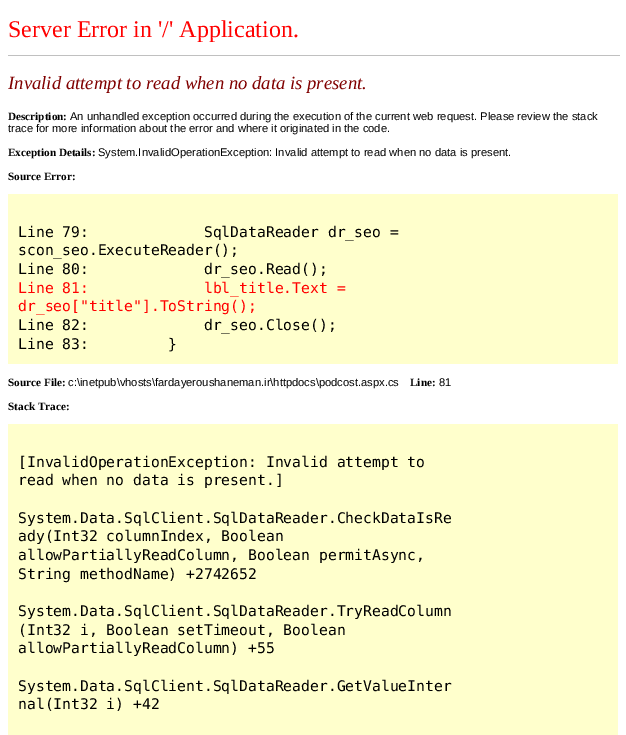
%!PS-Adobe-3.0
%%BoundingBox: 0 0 626 735
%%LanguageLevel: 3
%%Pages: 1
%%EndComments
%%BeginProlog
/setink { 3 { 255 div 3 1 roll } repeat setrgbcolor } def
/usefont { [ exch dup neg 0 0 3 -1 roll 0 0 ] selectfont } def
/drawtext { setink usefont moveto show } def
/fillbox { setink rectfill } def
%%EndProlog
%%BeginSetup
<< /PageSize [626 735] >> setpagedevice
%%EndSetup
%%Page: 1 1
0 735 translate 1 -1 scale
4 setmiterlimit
0 0 626 735 255 255 255 fillbox
(Server Error in '/' Application.) 8 37 /LiberationSerif-Regular 24 255 0 0 drawtext
8 55 612 1 192 192 192 fillbox
(Invalid attempt to read when no data is present.) 8 89 /LiberationSerif-Italic 18.7 128 0 0 drawtext
(Description:) 8 120 /LiberationSerif-Bold 11.2 0 0 0 drawtext
(An unhandled exception occurred during the execution of the current web request. Please review the stack) 70 120 /LiberationSans-Regular 11.2 0 0 0 drawtext
(trace for more information about the error and where it originated in the code.) 8 132 /LiberationSans-Regular 11.2 0 0 0 drawtext
(Exception Details:) 8 156 /LiberationSerif-Bold 11.2 0 0 0 drawtext
(System.InvalidOperationException: Invalid attempt to read when no data is present.) 98 156 /LiberationSans-Regular 11.2 0 0 0 drawtext
(Source Error:) 8 180 /LiberationSerif-Bold 11.2 0 0 0 drawtext
8 194 610 170 255 255 204 fillbox
(Line 79:             SqlDataReader dr_seo =) 18 237 /DejaVuSansMono-Regular 14.7 0 0 0 drawtext
(scon_seo.ExecuteReader\(\);) 18 255 /DejaVuSansMono-Regular 14.7 0 0 0 drawtext
(Line 80:             dr_seo.Read\(\);) 18 274 /DejaVuSansMono-Regular 14.7 0 0 0 drawtext
(Line 81:             lbl_title.Text =) 18 293 /DejaVuSansMono-Regular 14.7 255 0 0 drawtext
(dr_seo["title"].ToString\(\);) 18 311 /DejaVuSansMono-Regular 14.7 255 0 0 drawtext
(Line 82:             dr_seo.Close\(\);) 18 330 /DejaVuSansMono-Regular 14.7 0 0 0 drawtext
(Line 83:         }) 18 349 /DejaVuSansMono-Regular 14.7 0 0 0 drawtext
(Source File:) 8 386 /LiberationSerif-Bold 11.2 0 0 0 drawtext
(c:\\inetpub\\vhosts\\fardayeroushaneman.ir\\httpdocs\\podcost.aspx.cs) 68 386 /LiberationSans-Regular 11.2 0 0 0 drawtext
(Line:) 410 386 /LiberationSerif-Bold 11.2 0 0 0 drawtext
(81) 439 386 /LiberationSans-Regular 11.2 0 0 0 drawtext
(Stack Trace:) 8 410 /LiberationSerif-Bold 11.2 0 0 0 drawtext
8 424 610 311 255 255 204 fillbox
([InvalidOperationException: Invalid attempt to) 18 467 /DejaVuSansMono-Regular 14.7 0 0 0 drawtext
(read when no data is present.]) 18 485 /DejaVuSansMono-Regular 14.7 0 0 0 drawtext
(System.Data.SqlClient.SqlDataReader.CheckDataIsRe) 18 523 /DejaVuSansMono-Regular 14.7 0 0 0 drawtext
(ady\(Int32 columnIndex, Boolean) 18 541 /DejaVuSansMono-Regular 14.7 0 0 0 drawtext
(allowPartiallyReadColumn, Boolean permitAsync,) 18 560 /DejaVuSansMono-Regular 14.7 0 0 0 drawtext
(String methodName\) +2742652) 18 579 /DejaVuSansMono-Regular 14.7 0 0 0 drawtext
(System.Data.SqlClient.SqlDataReader.TryReadColumn) 18 616 /DejaVuSansMono-Regular 14.7 0 0 0 drawtext
(\(Int32 i, Boolean setTimeout, Boolean) 18 635 /DejaVuSansMono-Regular 14.7 0 0 0 drawtext
(allowPartiallyReadColumn\) +55) 18 653 /DejaVuSansMono-Regular 14.7 0 0 0 drawtext
(System.Data.SqlClient.SqlDataReader.GetValueInter) 18 691 /DejaVuSansMono-Regular 14.7 0 0 0 drawtext
(nal\(Int32 i\) +42) 18 709 /DejaVuSansMono-Regular 14.7 0 0 0 drawtext
showpage
%%EOF
